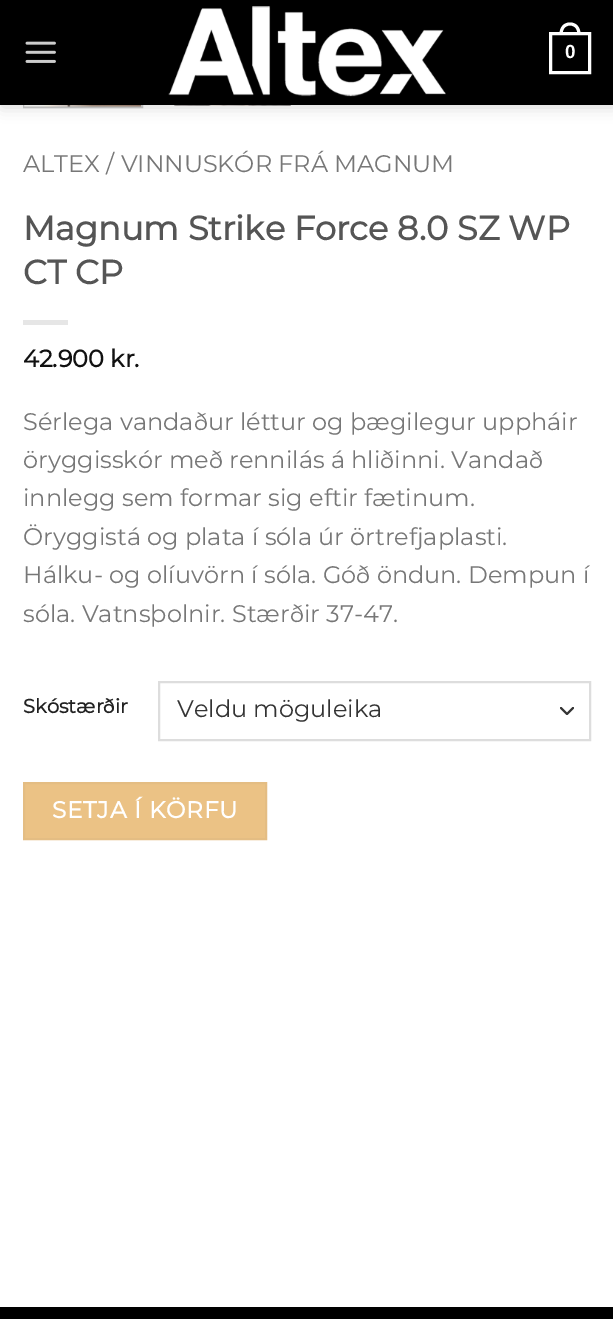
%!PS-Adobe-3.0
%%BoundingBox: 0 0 613 1319
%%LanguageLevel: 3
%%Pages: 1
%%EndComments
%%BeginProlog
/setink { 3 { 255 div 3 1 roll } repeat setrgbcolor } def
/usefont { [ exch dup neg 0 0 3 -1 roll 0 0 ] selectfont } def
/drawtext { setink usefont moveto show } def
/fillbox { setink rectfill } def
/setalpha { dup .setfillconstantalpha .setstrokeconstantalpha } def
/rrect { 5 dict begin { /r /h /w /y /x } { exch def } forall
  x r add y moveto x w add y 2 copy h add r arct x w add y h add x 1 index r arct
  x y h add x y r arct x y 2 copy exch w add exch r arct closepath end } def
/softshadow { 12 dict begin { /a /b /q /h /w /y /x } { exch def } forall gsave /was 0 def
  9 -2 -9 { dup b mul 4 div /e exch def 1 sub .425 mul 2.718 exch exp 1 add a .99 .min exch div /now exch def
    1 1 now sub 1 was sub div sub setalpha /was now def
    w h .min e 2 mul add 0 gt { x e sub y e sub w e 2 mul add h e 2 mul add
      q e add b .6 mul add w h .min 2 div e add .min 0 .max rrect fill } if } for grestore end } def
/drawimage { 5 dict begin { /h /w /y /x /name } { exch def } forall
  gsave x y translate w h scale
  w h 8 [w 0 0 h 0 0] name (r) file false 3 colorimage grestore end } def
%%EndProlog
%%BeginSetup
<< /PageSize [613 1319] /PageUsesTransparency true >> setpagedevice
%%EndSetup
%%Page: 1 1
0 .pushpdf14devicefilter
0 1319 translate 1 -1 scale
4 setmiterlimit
0 0 613 1319 255 255 255 fillbox
204 204 204 setink
2 setlinewidth
24 -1 118 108 rectstroke
(assets/img3.rgb) 24 105 117 2 drawimage
(assets/img4.rgb) 174 105 117 1 drawimage
0 0 0 setink
2 2 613 105 0 7.5 0.15 softshadow
0 0 613 105 0 0 0 fillbox
(assets/img1.rgb) 25 41 31 22 drawimage
(assets/img2.rgb) 168 6 278 91 drawimage
255 255 255 setink
3 setlinewidth
550.5 33.5 39 39 rectstroke
570 22.5 moveto 577 22.5 580.5 28 580.5 34.5 curveto 559.5 34.5 lineto 559.5 28 563 22.5 570 22.5 curveto closepath 570 25.5 moveto 575.5 25.5 577.5 30 577.5 34.5 curveto 562.5 34.5 lineto 562.5 30 564.5 25.5 570 25.5 curveto closepath eofill
(0) 565 58 /LiberationSans-Bold 19 255 255 255 drawtext
(ALTEX / VINNUSKÓR FRÁ MAGNUM) 23 172 /Montserrat-Thin 24 119 119 119 drawtext
(Magnum Strike Force 8.0 SZ WP) 23 240 /Montserrat-Bold 33.6 85 85 85 drawtext
(CT CP) 23 284 /Montserrat-Bold 33.6 85 85 85 drawtext
23 320 45 5 230 230 230 fillbox
(42.900 kr.) 23 367 /Montserrat-Bold 24 17 17 17 drawtext
(Sérlega vandaður léttur og þægilegur uppháir) 23 430 /Montserrat-Thin 24 119 119 119 drawtext
(öryggisskór með rennilás á hliðinni. Vandað) 23 468 /Montserrat-Thin 24 119 119 119 drawtext
(innlegg sem formar sig eftir fætinum.) 23 506 /Montserrat-Thin 24 119 119 119 drawtext
(Öryggistá og plata í sóla úr örtrefjaplasti.) 23 545 /Montserrat-Thin 24 119 119 119 drawtext
(Hálku- og olíuvörn í sóla. Góð öndun. Dempun í) 23 583 /Montserrat-Thin 24 119 119 119 drawtext
(sóla. Vatnsþolnir. Stærðir 37-47.) 23 622 /Montserrat-Thin 24 119 119 119 drawtext
(Skóstærðir) 23 713 /Montserrat-Bold 19.5 34 34 34 drawtext
51 51 51 setink
2 setlinewidth
1 setlinecap
1 setlinejoin
561 708 moveto 567 714 lineto 573 708 lineto stroke
221 221 221 setink
0 setlinecap
0 setlinejoin
159 682 431 58 rectstroke
(Veldu möguleika) 177 717 /Montserrat-Thin 24 51 51 51 drawtext
235 194 133 setink
24 783 moveto 266 783 lineto 266 839 lineto 24 839 lineto closepath gsave fill grestore
228 189 131 setink
stroke
/Montserrat-Bold 23.25 usefont
255 255 255 setink
52 818 moveto 0.75 0 (SETJA Í KÖRFU) ashow
0 1307 613 12 0 0 0 fillbox
.poppdf14devicefilter showpage
%%EOF
